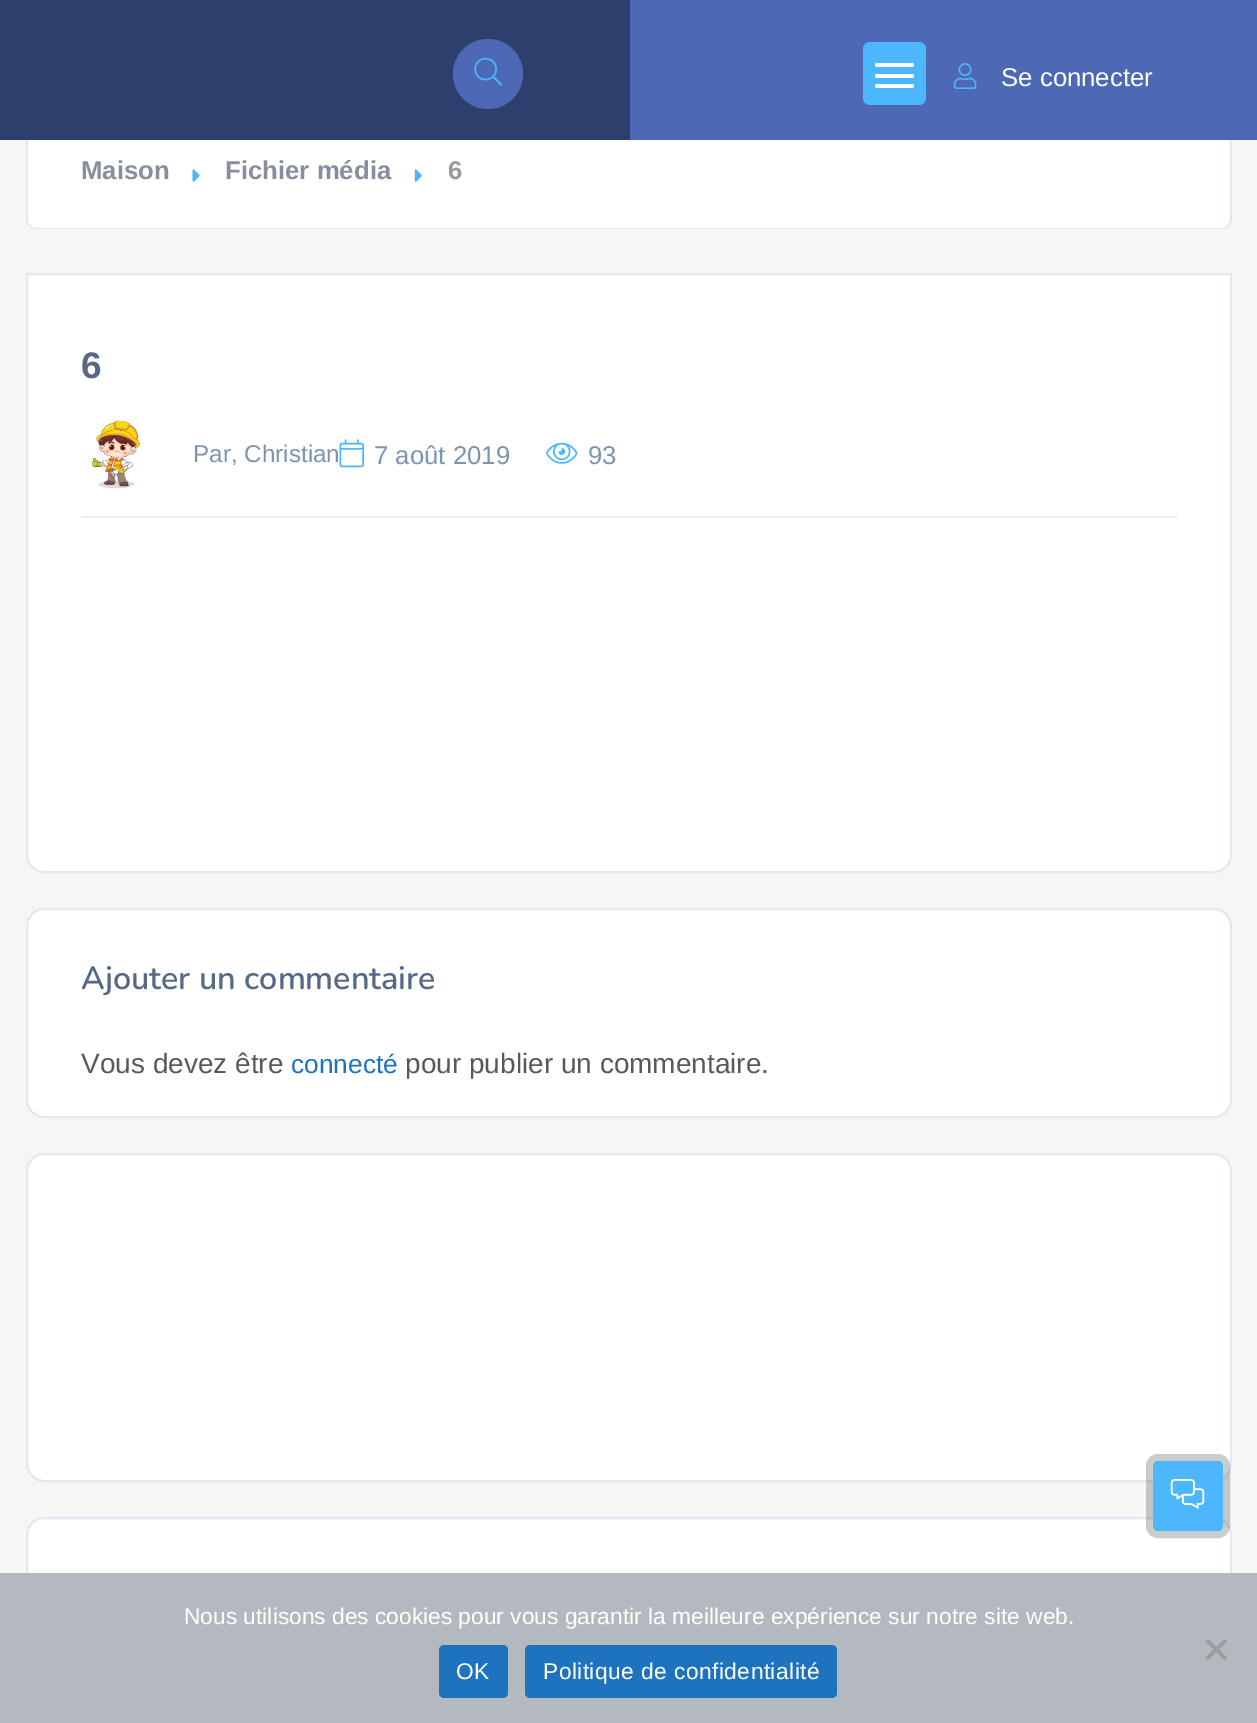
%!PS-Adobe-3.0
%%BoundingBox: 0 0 1257 1723
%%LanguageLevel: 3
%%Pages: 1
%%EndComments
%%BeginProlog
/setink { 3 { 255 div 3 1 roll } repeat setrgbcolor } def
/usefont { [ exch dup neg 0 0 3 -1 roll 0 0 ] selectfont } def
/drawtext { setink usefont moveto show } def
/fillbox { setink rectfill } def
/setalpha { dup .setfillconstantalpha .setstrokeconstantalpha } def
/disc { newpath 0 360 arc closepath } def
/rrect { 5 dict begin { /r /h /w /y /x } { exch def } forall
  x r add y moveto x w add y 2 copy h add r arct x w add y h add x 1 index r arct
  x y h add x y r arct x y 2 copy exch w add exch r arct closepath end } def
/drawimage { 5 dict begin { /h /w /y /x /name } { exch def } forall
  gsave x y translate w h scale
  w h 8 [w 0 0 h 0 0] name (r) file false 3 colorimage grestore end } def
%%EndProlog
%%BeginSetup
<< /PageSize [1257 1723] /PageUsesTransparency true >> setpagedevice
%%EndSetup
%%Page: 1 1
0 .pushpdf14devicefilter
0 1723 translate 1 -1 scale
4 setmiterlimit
0 0 1257 1723 246 246 246 fillbox
255 255 255 setink
26 112 moveto 1232 112 lineto 1232 218 lineto 1232 224 1227 229 1221 229 curveto 37 229 lineto 31 229 26 224 26 218 curveto closepath fill
229 231 242 setink
26 112 moveto 1232 112 lineto 1232 219 lineto 1232 225 1227 229 1222 229 curveto 37 229 lineto 31 229 26 225 26 219 curveto closepath 28 112 moveto 1230 112 lineto 1230 219 lineto 1230 224 1226 228 1222 228 curveto 37 228 lineto 32 228 28 224 28 219 curveto closepath eofill
0 0 630 140 46 63 110 fillbox
77 105 181 setink
488 74 35 disc fill
(assets/img1.rgb) 474 57 29 29 drawimage
630 0 627 140 77 105 181 fillbox
77 183 254 setink
863 42 63 63 7 rrect fill
255 255 255 setink
875 63 39 4 2 rrect fill
875 74 39 4 2 rrect fill
875 84 39 4 2 rrect fill
(assets/img2.rgb) 953 63 24 26 drawimage
(Se connecter) 1001 86 /LiberationSans-Regular 25.75 255 255 255 drawtext
(Maison) 81 179 /LiberationSans-Bold 25.75 136 141 160 drawtext
(assets/img3.rgb) 192 169 8 13 drawimage
(Fichier média) 225 179 /LiberationSans-Bold 25.75 136 141 160 drawtext
(assets/img4.rgb) 414 169 8 13 drawimage
(6) 448 179 /LiberationSans-Bold 25.75 153 153 153 drawtext
255 255 255 setink
27 274 moveto 1231 274 lineto 1231 855 lineto 1231 864.5 1223.5 872 1214 872 curveto 44 872 lineto 34.5 872 27 864.5 27 855 curveto closepath gsave fill grestore
229 231 242 setink
2 setlinewidth
stroke
(6) 81 378 /LiberationSans-Bold 37 86 105 133 drawtext
(assets/img5.rgb) 92 420 49 69 drawimage
(Par, Christian) 193 462 /LiberationSans-Regular 24.25 125 147 178 drawtext
(assets/img6.rgb) 339 439 25 29 drawimage
(7 août 2019) 374 464 /LiberationSans-Regular 25.75 125 147 178 drawtext
(assets/img7.rgb) 546 442 32 22 drawimage
(93) 588 464 /LiberationSans-Regular 25.75 125 147 178 drawtext
81 516 1097 2 238 238 238 fillbox
255 255 255 setink
27 909 1204 208 17 rrect gsave fill grestore
229 231 242 setink
stroke
(Ajouter un commentaire) 81 989 /Nunito-SemiBold 32.25 86 105 133 drawtext
(Vous devez être) 81 1073 /LiberationSans-Regular 28 89 89 89 drawtext
(connecté) 291 1073 /LiberationSans-Regular 26.25 30 115 190 drawtext
(pour publier un commentaire.) 405 1073 /LiberationSans-Regular 28 89 89 89 drawtext
255 255 255 setink
27 1154 1204 327 17 rrect gsave fill grestore
229 231 242 setink
stroke
255 255 255 setink
27 1518 1204 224 17 rrect gsave fill grestore
229 231 242 setink
stroke
0.2 setalpha
0 0 0 setink
7 setlinewidth
1149.5 1457.5 77 77 8.5 rrect stroke
1 setalpha
77 183 254 setink
1153 1461 70 70 5 rrect fill
(assets/img8.rgb) 1170 1479 35 30 drawimage
0 1573 1257 150 179 185 191 fillbox
(Nous utilisons des cookies pour vous garantir la meilleure expérience sur notre site web.) 184 1624 /LiberationSans-Regular 22.75 255 255 255 drawtext
154 157 160 setink
1224.5 1639 moveto 1227 1641.5 lineto 1208 1660 lineto 1205.5 1657.5 lineto closepath fill
1205.5 1641.5 moveto 1208 1639 lineto 1227 1657.5 lineto 1224.5 1660 lineto closepath fill
30 115 190 setink
439 1645 69 53 5 rrect fill
255 255 255 setink
456 1679 moveto 0.45 0 (OK) ashow
30 115 190 setink
525 1645 312 53 5 rrect fill
255 255 255 setink
543 1679 moveto 0.45 0 (Politique de confidentialité) ashow
.poppdf14devicefilter showpage
%%EOF
